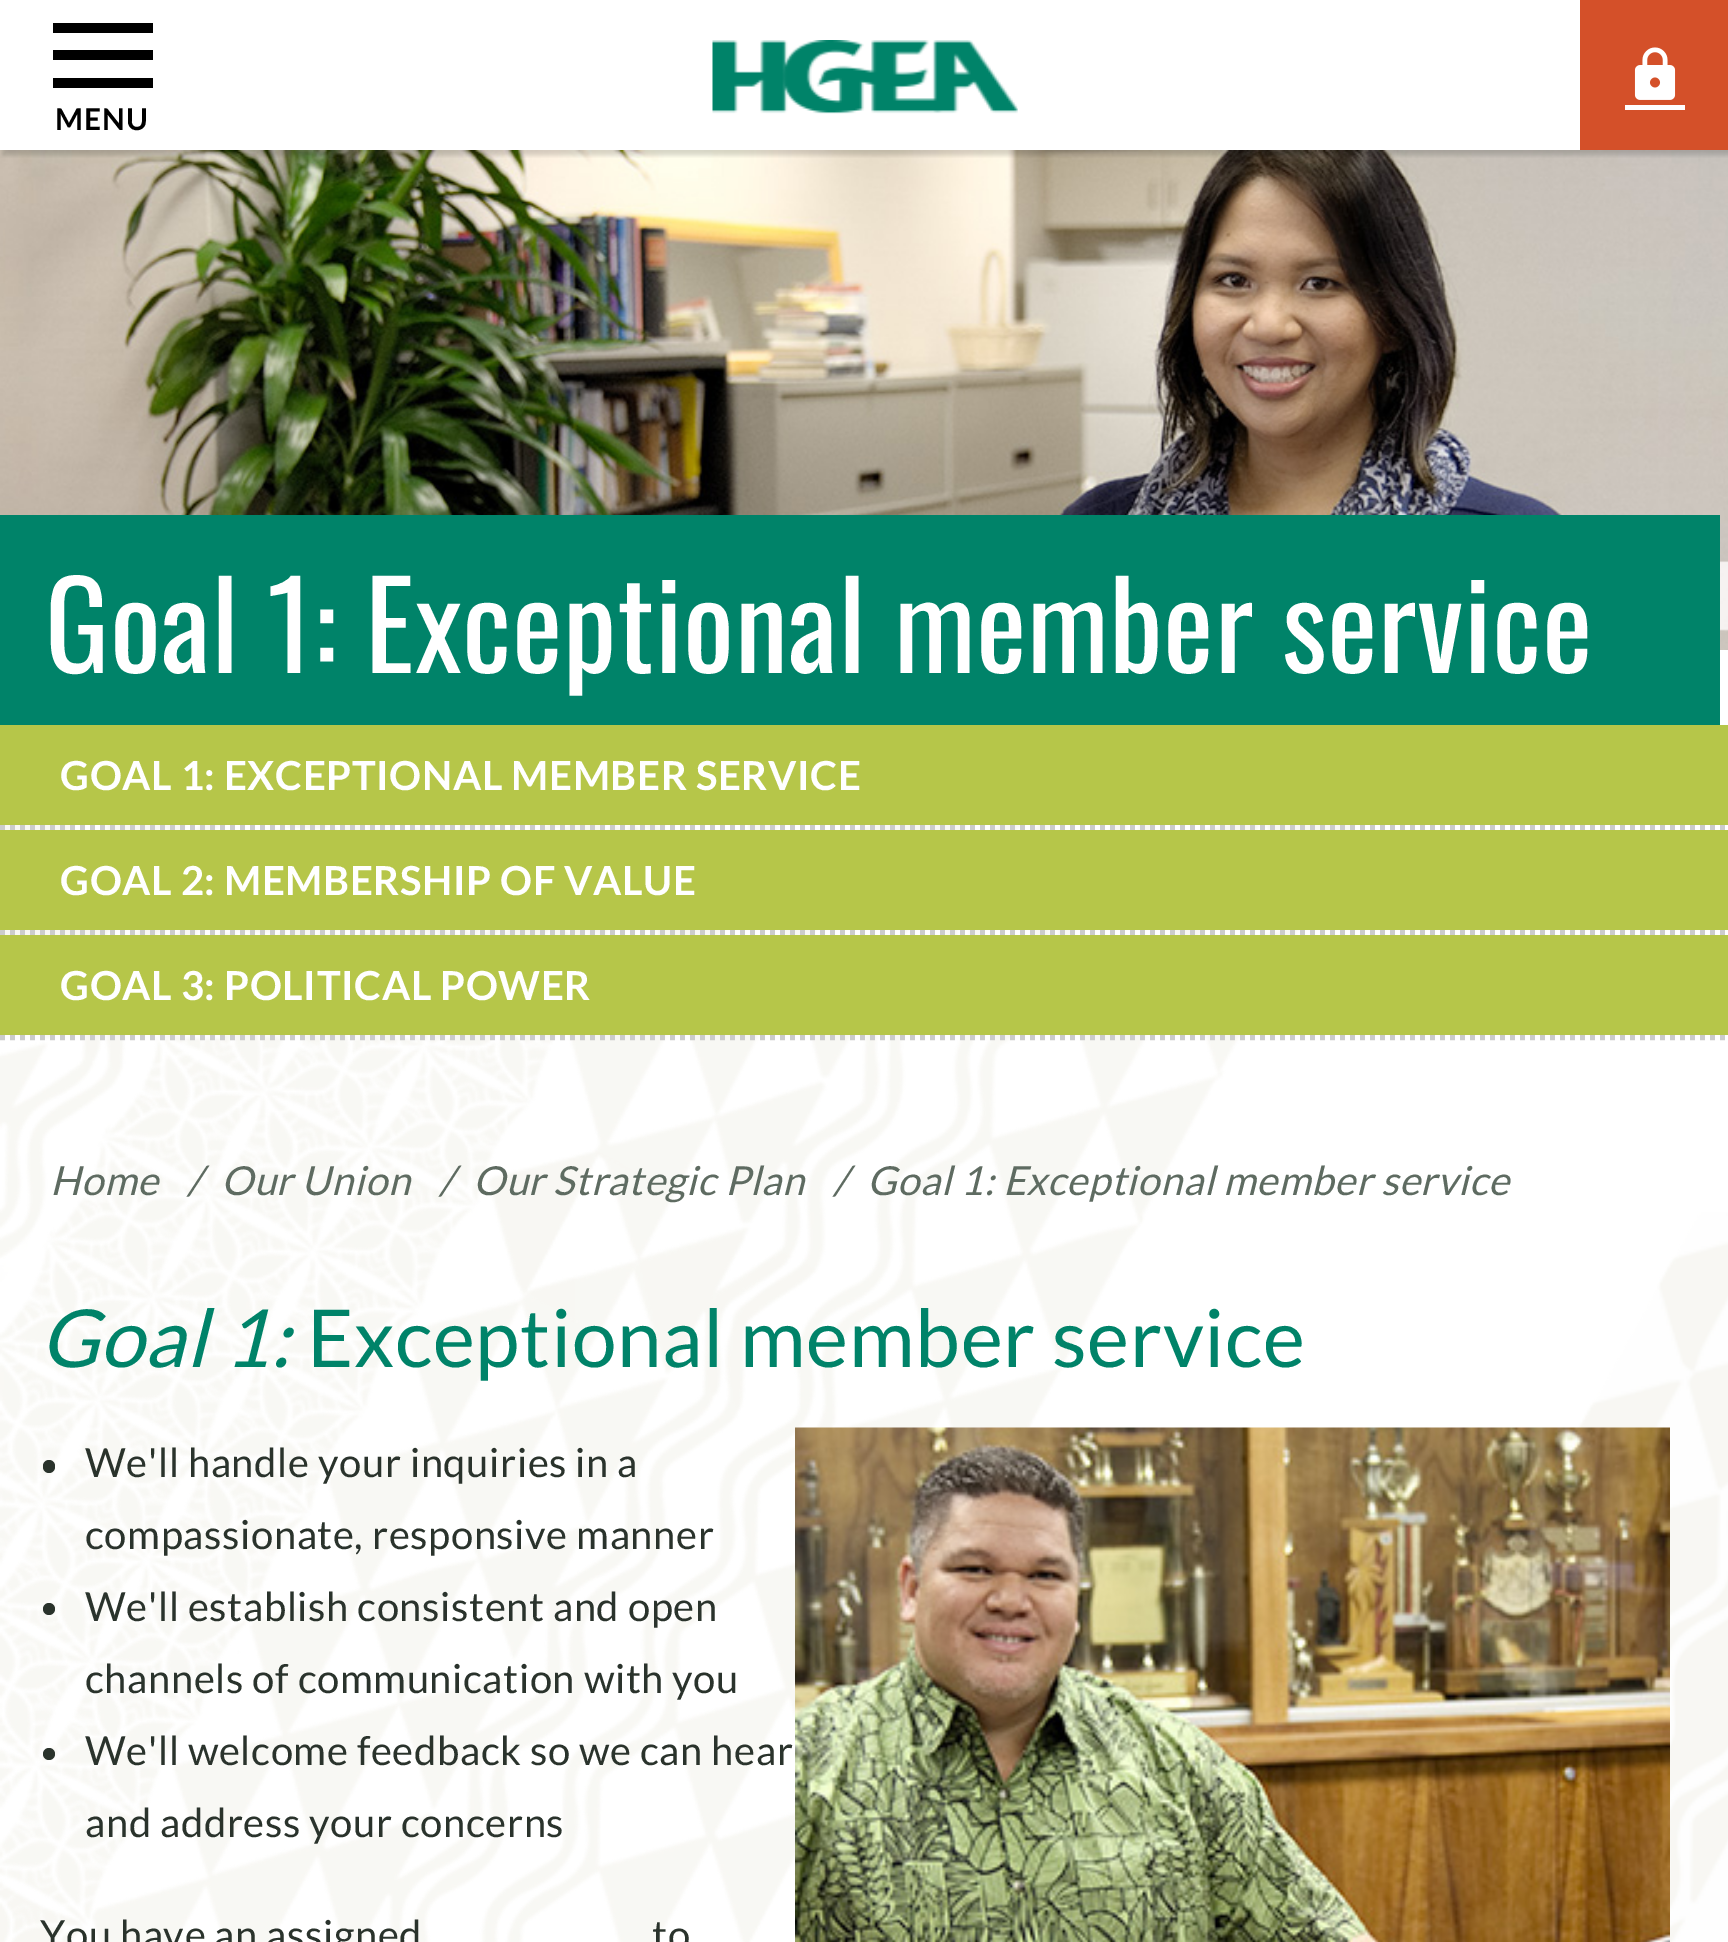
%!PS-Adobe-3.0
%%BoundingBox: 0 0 1728 1942
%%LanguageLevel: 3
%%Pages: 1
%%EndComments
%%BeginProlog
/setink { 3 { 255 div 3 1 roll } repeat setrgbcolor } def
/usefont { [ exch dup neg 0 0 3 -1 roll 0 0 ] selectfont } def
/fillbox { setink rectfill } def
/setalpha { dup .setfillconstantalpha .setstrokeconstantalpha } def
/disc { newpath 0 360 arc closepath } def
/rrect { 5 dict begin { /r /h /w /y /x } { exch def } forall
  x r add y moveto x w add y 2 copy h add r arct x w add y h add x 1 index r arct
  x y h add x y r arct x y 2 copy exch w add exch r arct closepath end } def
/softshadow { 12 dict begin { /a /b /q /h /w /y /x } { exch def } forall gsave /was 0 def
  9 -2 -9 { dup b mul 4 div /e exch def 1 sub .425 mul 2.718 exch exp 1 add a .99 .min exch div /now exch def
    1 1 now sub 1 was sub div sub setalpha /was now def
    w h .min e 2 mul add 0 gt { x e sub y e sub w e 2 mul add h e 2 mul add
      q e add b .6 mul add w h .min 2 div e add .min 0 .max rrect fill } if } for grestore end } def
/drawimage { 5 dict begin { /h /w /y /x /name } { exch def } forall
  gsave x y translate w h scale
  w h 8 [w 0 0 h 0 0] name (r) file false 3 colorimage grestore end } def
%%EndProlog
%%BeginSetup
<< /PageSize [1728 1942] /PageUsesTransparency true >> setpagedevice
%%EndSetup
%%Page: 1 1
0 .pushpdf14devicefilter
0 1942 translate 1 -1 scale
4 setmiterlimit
0 0 1728 1942 255 255 255 fillbox
(assets/img4.rgb) 0 150 1728 500 drawimage
gsave
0 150 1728 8 rectclip
0 0 0 setink
3 5 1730 150 0 2.5 0.16 softshadow
grestore
(assets/img1.rgb) 712 40 306 74 drawimage
1580 0 148 150 212 80 41 fillbox
(assets/img2.rgb) 1634 47 42 53 drawimage
1625 105 60 5 255 255 255 fillbox
53 50 100 10 0 0 0 fillbox
53 23 100 10 0 0 0 fillbox
53 78 100 10 0 0 0 fillbox
/Lato-Bold 30 usefont
55 130 moveto 1 0 (MENU) ashow
(assets/img3.rgb) 0 825 1728 1117 drawimage
0 515 1720 210 0 131 105 fillbox
/Oswald-Regular 120 usefont
255 255 255 setink
45 673 moveto 0.6 0 (Goal 1: Exceptional member service) ashow
204 204 204 setink
5 setlinewidth
[5 5] 0 setdash
0 827.5 moveto 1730 827.5 lineto stroke
0 725 1728 100 182 198 73 fillbox
/Lato-Bold 40 usefont
255 255 255 setink
60 790 moveto 0.6 0 (GOAL 1: EXCEPTIONAL MEMBER SERVICE) ashow
204 204 204 setink
0 932.5 moveto 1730 932.5 lineto stroke
0 830 1728 100 182 198 73 fillbox
255 255 255 setink
60 895 moveto 0.6 0 (GOAL 2: MEMBERSHIP OF VALUE) ashow
204 204 204 setink
0 1037.5 moveto 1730 1037.5 lineto stroke
0 935 1728 100 182 198 73 fillbox
255 255 255 setink
60 1000 moveto 0.6 0 (GOAL 3: POLITICAL POWER) ashow
/Lato-Italic 40 usefont
94 107 97 setink
50 1195 moveto 0.6 0 (Home) ashow
187 1195 moveto 0.6 0 (/) ashow
221 1195 moveto 0.6 0 (Our Union) ashow
439 1195 moveto 0.6 0 (/) ashow
473 1195 moveto 0.6 0 (Our Strategic Plan) ashow
833 1195 moveto 0.6 0 (/) ashow
867 1195 moveto 0.6 0 (Goal 1: Exceptional member service) ashow
/Lato-Italic 80 usefont
0 131 105 setink
40 1367 moveto 0.6 0 (Goal 1:) ashow
/Lato-Regular 80 usefont
307 1367 moveto 0.6 0 (Exceptional member service) ashow
42 51 44 setink
43 1460 12 13 6 rrect fill
/Lato-Regular 40 usefont
85 1477 moveto 0.6 0 (We'll handle your inquiries in a) ashow
85 1549 moveto 0.6 0 (compassionate, responsive manner) ashow
49 1609 6 disc fill
85 1621 moveto 0.6 0 (We'll establish consistent and open) ashow
85 1693 moveto 0.6 0 (channels of communication with you) ashow
49 1754 6 disc fill
85 1765 moveto 0.6 0 (We'll welcome feedback so we can hear) ashow
85 1837 moveto 0.6 0 (and address your concerns) ashow
(assets/img5.rgb) 795 1427 875 515 drawimage
40 1949 moveto 0.6 0 (You have an assigned) ashow
652 1949 moveto 0.6 0 (to) ashow
.poppdf14devicefilter showpage
%%EOF
